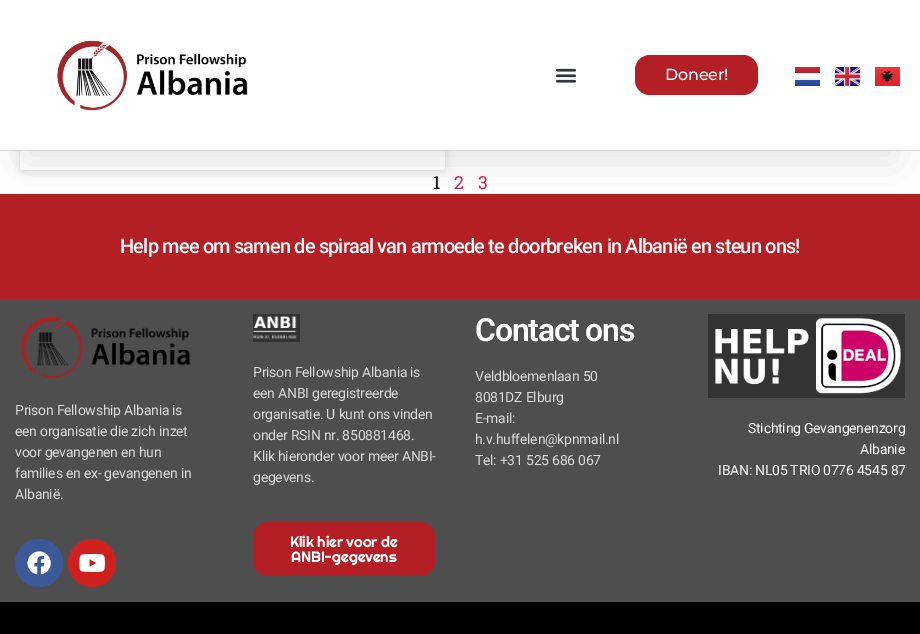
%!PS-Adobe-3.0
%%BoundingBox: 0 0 920 634
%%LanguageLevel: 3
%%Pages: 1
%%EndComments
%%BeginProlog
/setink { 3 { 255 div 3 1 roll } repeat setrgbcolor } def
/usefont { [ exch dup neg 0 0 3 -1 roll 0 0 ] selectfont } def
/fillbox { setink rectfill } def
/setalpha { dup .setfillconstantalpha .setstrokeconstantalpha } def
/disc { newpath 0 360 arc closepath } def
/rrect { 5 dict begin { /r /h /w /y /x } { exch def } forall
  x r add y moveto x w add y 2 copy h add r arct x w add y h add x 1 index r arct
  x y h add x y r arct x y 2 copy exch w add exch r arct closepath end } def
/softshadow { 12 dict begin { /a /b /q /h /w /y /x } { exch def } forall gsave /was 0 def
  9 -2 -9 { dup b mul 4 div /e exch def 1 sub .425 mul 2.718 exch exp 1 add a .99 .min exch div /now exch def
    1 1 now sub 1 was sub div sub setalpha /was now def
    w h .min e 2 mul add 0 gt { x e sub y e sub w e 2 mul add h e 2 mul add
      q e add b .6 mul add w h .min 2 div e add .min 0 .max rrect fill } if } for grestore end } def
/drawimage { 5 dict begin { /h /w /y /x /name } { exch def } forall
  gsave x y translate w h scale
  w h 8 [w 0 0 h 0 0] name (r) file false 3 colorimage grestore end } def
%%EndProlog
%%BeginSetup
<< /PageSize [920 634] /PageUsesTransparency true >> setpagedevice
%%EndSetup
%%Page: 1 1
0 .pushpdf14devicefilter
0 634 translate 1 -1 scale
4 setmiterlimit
0 0 920 634 255 255 255 fillbox
0 0 0 setink
20 -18 425 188 3 5 0.15 softshadow
255 255 255 setink
20 -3 425 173 3 rrect fill
0 194 920 105 180 31 37 fillbox
0 0 0 setink
24 59 872 103 0 20 0.1 softshadow
0 0 920 150 255 255 255 fillbox
0 150 920 1 214 214 214 fillbox
(assets/img1.rgb) 51 40 197 71 drawimage
(assets/img2.rgb) 555 68 22 15 drawimage
180 31 37 setink
635 55 123 40 15 rrect fill
/Montserrat-Medium 16 usefont
255 255 255 setink
665 80 moveto -0.25 0 (Doneer!) ashow
gsave 795 67 moveto 820 67 lineto 820 73 lineto 795 73 lineto closepath clip newpath
<< /ShadingType 2 /ColorSpace /DeviceRGB /Coords [807 67 807 73] /Extend [true true] /Function << /FunctionType 2 /Domain [0 1] /C0 [0.792 0.169 0.224] /C1 [0.675 0.122 0.173] /N 1 >> >> shfill grestore
gsave 795 80 moveto 820 80 lineto 820 86 lineto 795 86 lineto closepath clip newpath
<< /ShadingType 2 /ColorSpace /DeviceRGB /Coords [807 80 807 86] /Extend [true true] /Function << /FunctionType 2 /Domain [0 1] /C0 [0.173 0.337 0.635] /C1 [0.141 0.282 0.537] /N 1 >> >> shfill grestore
gsave 795 74 moveto 820 74 lineto 820 80 lineto 795 80 lineto closepath clip newpath
<< /ShadingType 2 /ColorSpace /DeviceRGB /Coords [807 73 807 80] /Extend [true true] /Function << /FunctionType 2 /Domain [0 1] /C0 [1 1 1] /C1 [0.941 0.941 0.941] /N 1 >> >> shfill grestore
(assets/img3.rgb) 835 67 25 19 drawimage
(assets/img4.rgb) 875 67 25 19 drawimage
/RobotoSlab-Regular 18 usefont
0 0 0 setink
433 189 moveto -0.25 0 (1) ashow
205 38 83 setink
454 189 moveto -0.25 0 (2) ashow
478 189 moveto -0.25 0 (3) ashow
/Roboto-Medium 20 usefont
255 255 255 setink
120 253 moveto -0.83 0 (Help mee om samen de spiraal van armoede te doorbreken in Albanië en steun ons!) ashow
0 299 920 303 78 78 78 fillbox
(assets/img5.rgb) 15 316 176 63 drawimage
/Roboto-Regular 14 usefont
218 218 218 setink
15 415 moveto -0.25 0 (Prison Fellowship Albania is) ashow
15 436 moveto -0.25 0 (een organisatie die zich inzet) ashow
15 457 moveto -0.25 0 (voor gevangenen en hun) ashow
15 478 moveto -0.25 0 (families en ex- gevangenen in) ashow
15 499 moveto -0.25 0 (Albanië.) ashow
59 89 152 setink
39 563 24 disc fill
(assets/img6.rgb) 27 551 24 24 drawimage
205 32 31 setink
92 563 24 disc fill
(assets/img7.rgb) 79 554 26 18 drawimage
(assets/img8.rgb) 253 314 47 28 drawimage
218 218 218 setink
253 377 moveto -0.25 0 (Prison Fellowship Albania is) ashow
253 398 moveto -0.25 0 (een ANBI geregistreerde) ashow
253 419 moveto -0.25 0 (organisatie. U kunt ons vinden) ashow
253 440 moveto -0.25 0 (onder RSIN nr. 850881468.) ashow
253 461 moveto -0.25 0 (Klik hieronder voor meer ANBI-) ashow
253 482 moveto -0.25 0 (gegevens.) ashow
180 31 37 setink
253 522 182 54 15 rrect fill
/Righteous-Regular 15 usefont
255 255 255 setink
290 547 moveto -0.25 0 (Klik hier voor de) ashow
291 562 moveto -0.25 0 (ANBI-gegevens) ashow
/Roboto-SemiBold 32 usefont
475 341 moveto -1.25 0 (Contact ons) ashow
/Roboto-Regular 14 usefont
218 218 218 setink
475 381 moveto -0.25 0 (Veldbloemenlaan 50) ashow
475 402 moveto -0.25 0 (8081DZ Elburg) ashow
475 423 moveto -0.25 0 (E-mail:) ashow
475 444 moveto -0.25 0 (h.v.huffelen@kpnmail.nl) ashow
475 465 moveto -0.25 0 (Tel: +31 525 686 067) ashow
(assets/img9.rgb) 708 314 197 84 drawimage
255 255 255 setink
748 433 moveto -0.25 0 (Stichting Gevangenenzorg) ashow
860 454 moveto -0.25 0 (Albanie) ashow
718 475 moveto -0.25 0 (IBAN: NL05 TRIO 0776 4545 87) ashow
0 602 920 32 0 0 0 fillbox
.poppdf14devicefilter showpage
%%EOF
